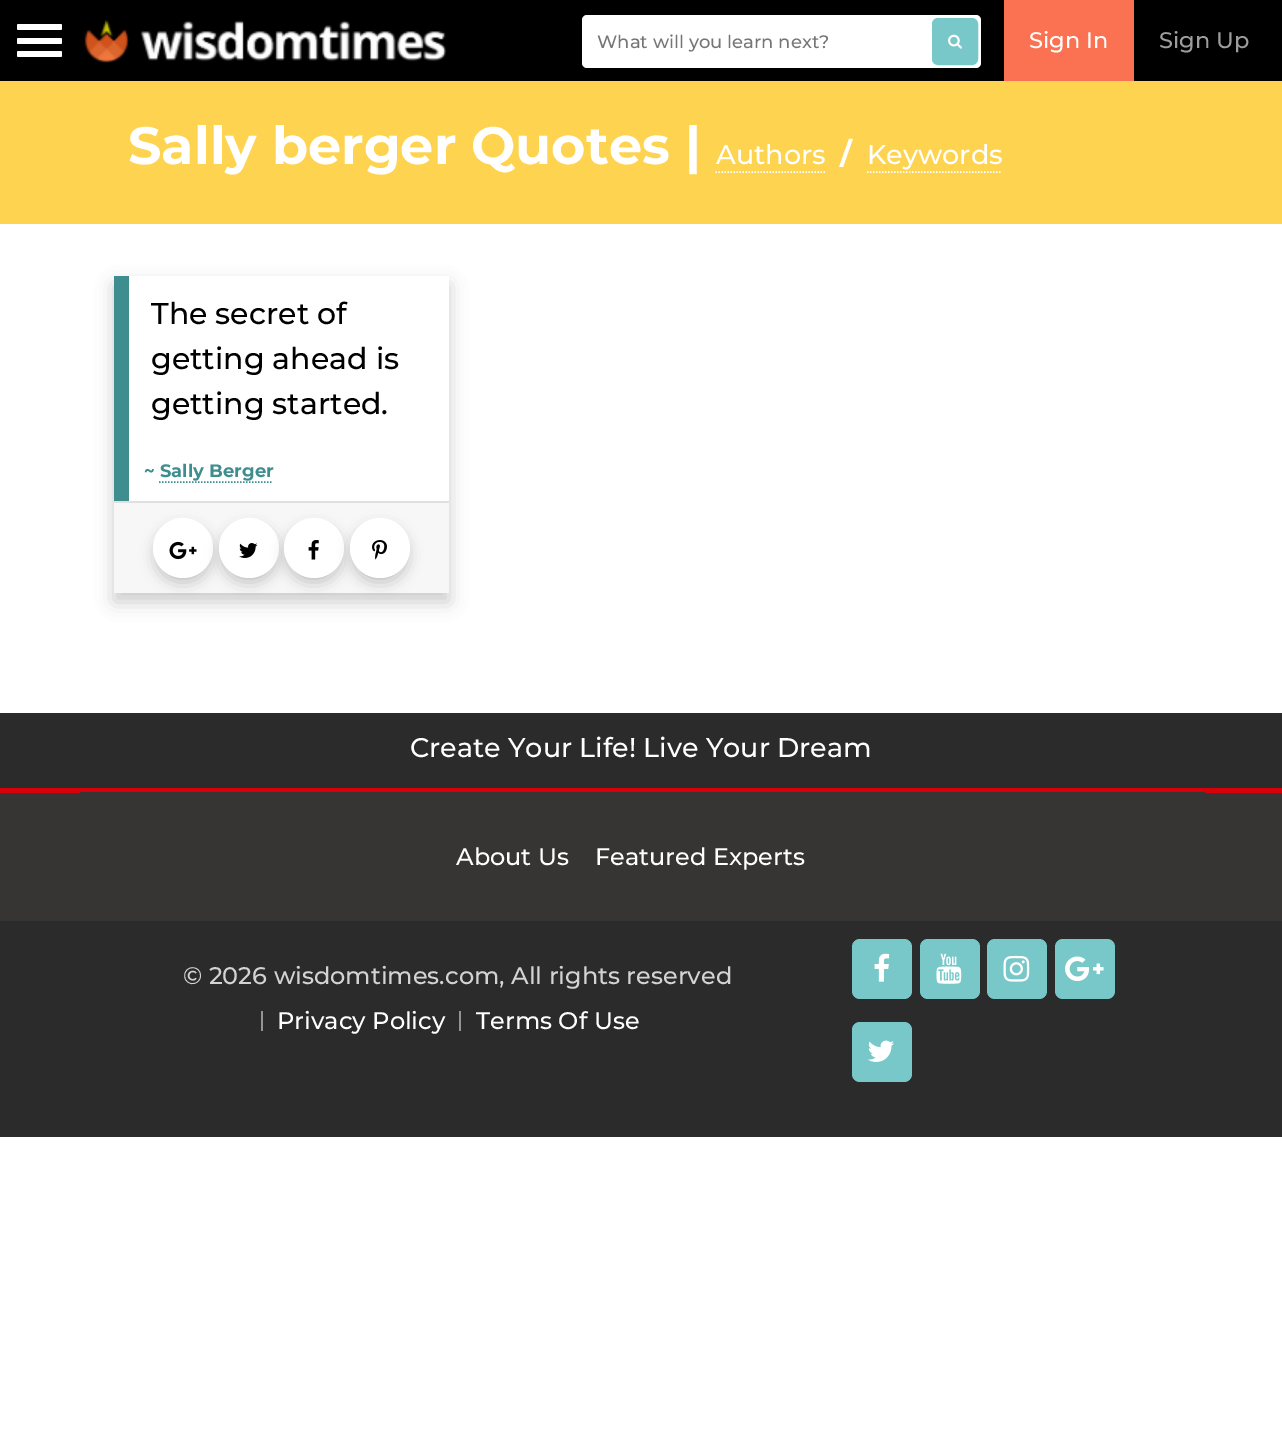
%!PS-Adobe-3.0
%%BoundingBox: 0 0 1282 1449
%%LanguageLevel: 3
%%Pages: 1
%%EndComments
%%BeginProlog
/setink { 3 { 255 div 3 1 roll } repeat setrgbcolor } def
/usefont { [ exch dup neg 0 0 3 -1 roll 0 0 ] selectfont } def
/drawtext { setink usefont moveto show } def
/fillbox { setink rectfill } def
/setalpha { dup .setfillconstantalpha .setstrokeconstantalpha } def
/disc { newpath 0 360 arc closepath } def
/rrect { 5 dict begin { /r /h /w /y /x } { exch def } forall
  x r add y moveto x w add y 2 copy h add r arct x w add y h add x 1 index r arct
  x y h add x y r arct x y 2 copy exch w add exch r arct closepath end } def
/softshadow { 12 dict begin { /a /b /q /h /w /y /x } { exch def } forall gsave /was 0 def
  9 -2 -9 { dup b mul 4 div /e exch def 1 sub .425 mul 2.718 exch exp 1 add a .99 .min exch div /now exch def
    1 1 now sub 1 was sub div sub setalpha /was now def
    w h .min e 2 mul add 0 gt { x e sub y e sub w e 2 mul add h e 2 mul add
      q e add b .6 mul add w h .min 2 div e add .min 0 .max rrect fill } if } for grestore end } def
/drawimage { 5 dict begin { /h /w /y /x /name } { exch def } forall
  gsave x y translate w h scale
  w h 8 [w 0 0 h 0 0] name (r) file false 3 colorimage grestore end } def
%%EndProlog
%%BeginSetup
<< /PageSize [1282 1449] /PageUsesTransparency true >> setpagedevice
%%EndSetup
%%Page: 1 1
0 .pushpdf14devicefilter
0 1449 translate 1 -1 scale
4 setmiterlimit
0 0 1282 1449 255 255 255 fillbox
0 0 1282 81 0 0 0 fillbox
255 255 255 setink
17 24 45 6 1.5 rrect fill
17 38 45 6 1.5 rrect fill
17 51 45 6 1.5 rrect fill
(assets/img1.rgb) 84 19 363 44 drawimage
582 15 399 53 5 rrect fill
(What will you learn next?) 597 48 /Montserrat-Medium 18 117 117 117 drawtext
120 200 201 setink
933 19 44 45 5 rrect gsave fill grestore
2 setlinewidth
stroke
(assets/img2.rgb) 948 34 14 15 drawimage
1004 0 130 81 250 114 82 fillbox
(Sign In) 1029 48 /Montserrat-Medium 22.5 255 255 255 drawtext
(Sign Up) 1159 48 /Montserrat-Medium 22.5 157 157 157 drawtext
0 81 1282 143 254 211 79 fillbox
(Sally berger Quotes |) 128 164 /Montserrat-Bold 52.5 255 255 255 drawtext
(Authors) 716 164 /Montserrat-Medium 27 255 255 255 drawtext
1.5 setlinewidth
[1.5 1.5] 0 setdash
715.5 172 moveto 825 172 lineto stroke
(/) 840 164 /Montserrat-Bold 30 255 255 255 drawtext
(Keywords) 867 164 /Montserrat-Medium 27 255 255 255 drawtext
867 172 moveto 1002 172 lineto stroke
0 0 0 setink
114 285 335 317 0 9 0.2 softshadow
129 276 320 225 255 255 255 fillbox
114 276 15 225 62 142 143 fillbox
(The secret of) 151 324 /Montserrat-Medium 30 0 0 0 drawtext
(getting ahead is) 151 369 /Montserrat-Medium 30 0 0 0 drawtext
(getting started.) 151 414 /Montserrat-Medium 30 0 0 0 drawtext
(~ Sally Berger) 144 477 /Montserrat-Bold 18 62 142 143 drawtext
159 482 moveto 273 482 lineto stroke
114 503 335 90 247 247 247 fillbox
114 501 335 2 224 224 224 fillbox
0 0 0 setink
164 534 39 39 19.5 9 0.15 softshadow
156 528 54 54 27 8 0.18 softshadow
255 255 255 setink
183 548 30 disc fill
(assets/img3.rgb) 169 541 28 19 drawimage
0 0 0 setink
230 534 39 39 19.5 9 0.15 softshadow
222 528 54 54 27 8 0.18 softshadow
255 255 255 setink
249 548 30 disc fill
(assets/img4.rgb) 239 543 19 15 drawimage
0 0 0 setink
294 534 39 39 19.5 9 0.15 softshadow
287 528 54 54 27 8 0.18 softshadow
255 255 255 setink
314 548 30 disc fill
(assets/img5.rgb) 308 540 11 20 drawimage
0 0 0 setink
360 534 39 39 19.5 9 0.15 softshadow
353 528 54 54 27 8 0.18 softshadow
255 255 255 setink
380 548 30 disc fill
(assets/img6.rgb) 372 540 15 20 drawimage
0 793 1282 128 54 53 51 fillbox
0 713 1282 75 43 43 43 fillbox
0 788 1282 5 216 1 9 fillbox
(Create Your Life! Live Your Dream) 410 757 /Montserrat-Medium 27 255 255 255 drawtext
80 792 1125 1 54 53 51 fillbox
(About Us) 456 865 /Montserrat-Medium 24 255 255 255 drawtext
(Featured Experts) 595 865 /Montserrat-Medium 24 255 255 255 drawtext
0 921 1282 216 43 43 43 fillbox
(© 2026 wisdomtimes.com, All rights reserved) 183 984 /Montserrat-Medium 24 211 211 211 drawtext
261 1011 2 20 149 148 148 fillbox
(Privacy Policy) 277 1029 /Montserrat-Medium 24 255 255 255 drawtext
459 1011 2 20 149 148 148 fillbox
(Terms Of Use) 476 1029 /Montserrat-Medium 24 255 255 255 drawtext
120 200 201 setink
852 939 60 60 8 rrect fill
(assets/img7.rgb) 874 953 16 29 drawimage
920 939 60 60 8 rrect fill
(assets/img8.rgb) 936 953 26 31 drawimage
987 939 60 60 8 rrect fill
(assets/img9.rgb) 1003 955 27 27 drawimage
1055 939 60 60 8 rrect fill
(assets/img10.rgb) 1065 956 39 26 drawimage
852 1022 60 60 8 rrect fill
(assets/img11.rgb) 868 1040 26 22 drawimage
.poppdf14devicefilter showpage
%%EOF
